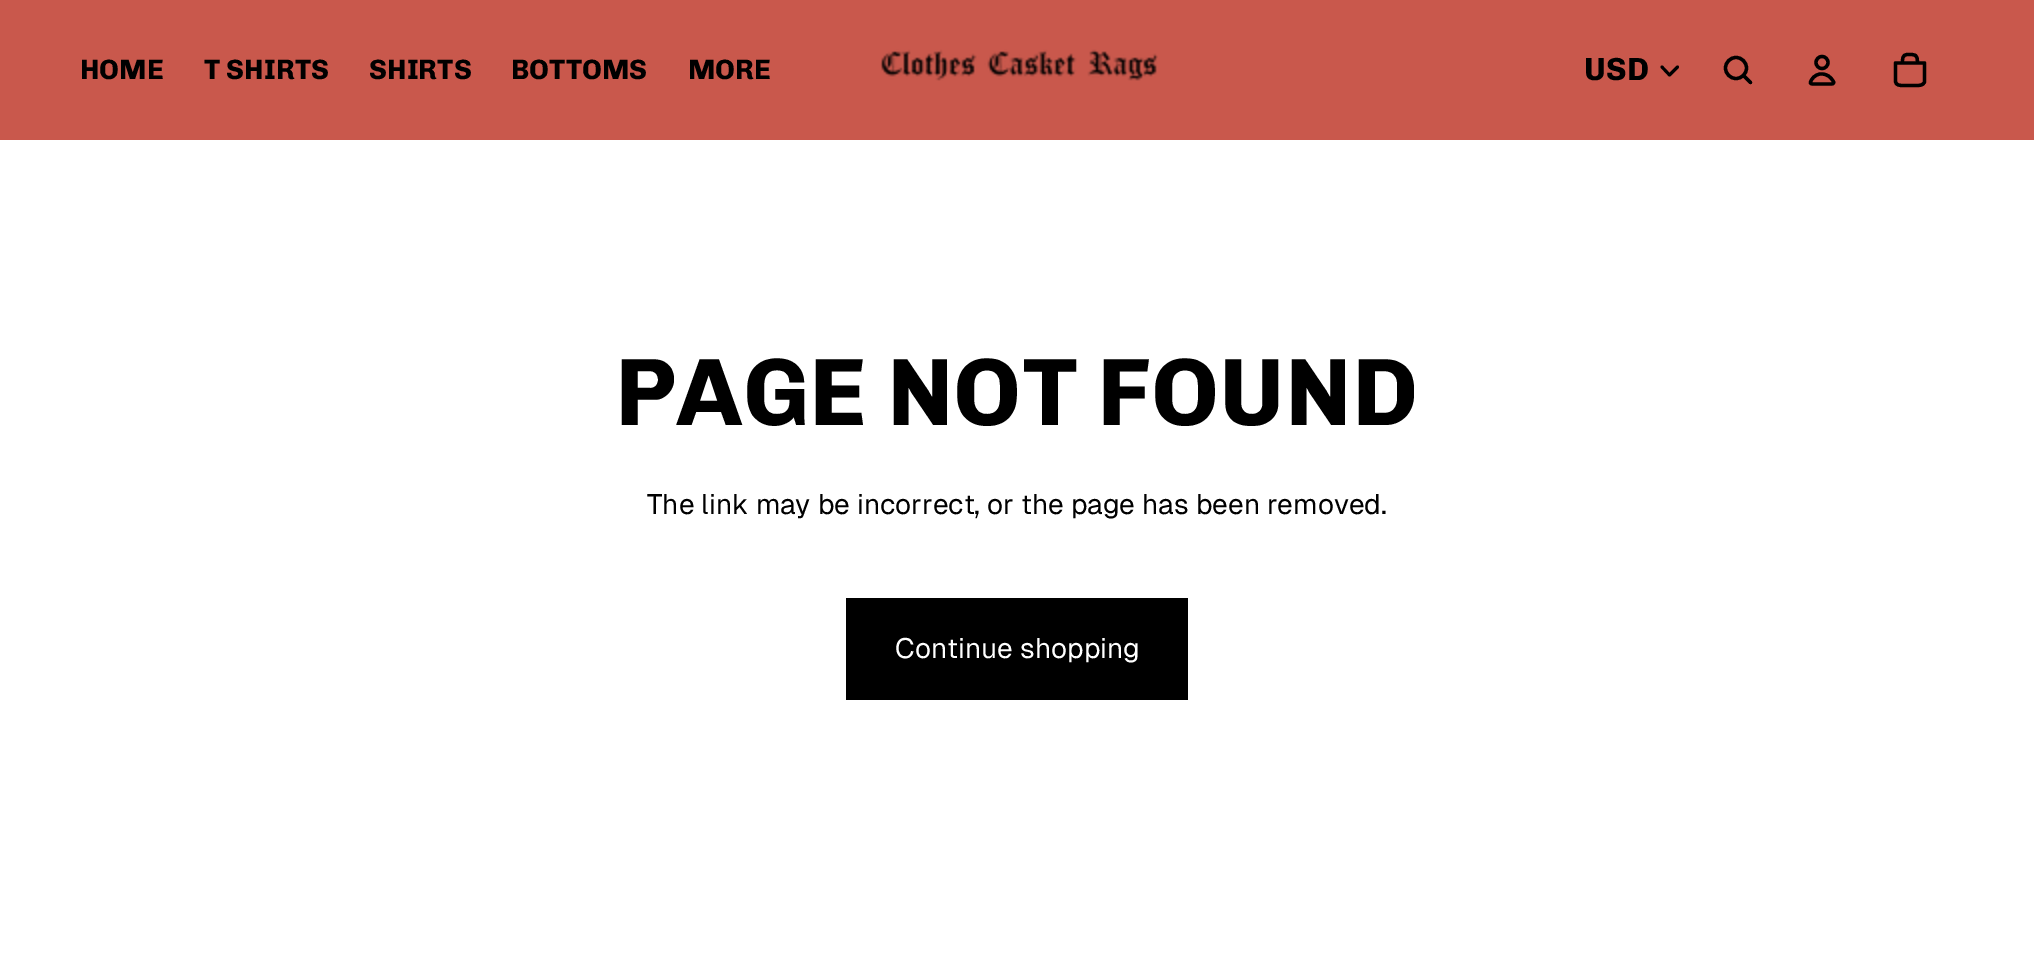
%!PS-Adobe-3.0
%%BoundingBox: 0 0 2034 958
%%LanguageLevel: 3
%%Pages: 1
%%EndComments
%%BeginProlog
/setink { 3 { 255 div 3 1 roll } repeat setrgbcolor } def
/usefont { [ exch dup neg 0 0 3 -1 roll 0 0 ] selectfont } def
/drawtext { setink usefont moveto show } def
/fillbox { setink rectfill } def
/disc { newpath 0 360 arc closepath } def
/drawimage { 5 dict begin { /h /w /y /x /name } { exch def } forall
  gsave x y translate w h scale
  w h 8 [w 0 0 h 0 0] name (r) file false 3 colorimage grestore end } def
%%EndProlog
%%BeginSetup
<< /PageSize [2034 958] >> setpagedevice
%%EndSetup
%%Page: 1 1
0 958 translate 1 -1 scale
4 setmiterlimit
0 0 2034 958 255 255 255 fillbox
0 0 2034 140 201 88 76 fillbox
(HOME) 80 79 /Chivo-Bold 28 0 0 0 drawtext
(T SHIRTS) 204 79 /Chivo-Bold 28 0 0 0 drawtext
(SHIRTS) 369 79 /Chivo-Bold 28 0 0 0 drawtext
(BOTTOMS) 511 79 /Chivo-Bold 28 0 0 0 drawtext
(MORE) 688 79 /Chivo-Bold 28 0 0 0 drawtext
(assets/img1.rgb) 880 49 278 32 drawimage
(USD) 1584 80 /Chivo-Bold 32 0 0 0 drawtext
2.9 setlinewidth
1 setlinecap
1 setlinejoin
1677.5 67 moveto 1669.5 75 lineto 1662 67 lineto stroke
3.3 setlinewidth
0 setlinecap
0 setlinejoin
1736 68 10.5 disc stroke
1 setlinecap
1 setlinejoin
1743.5 75.5 moveto 1750.5 82.5 lineto stroke
0 setlinecap
0 setlinejoin
1822 62.5 6 disc stroke
1 setlinecap
1 setlinejoin
1811.5 80 moveto 1809 84 1810.5 84 1815 84 curveto 1829 84 lineto 1829.5 84 1833 84.5 1833.5 83 curveto 1834 82.5 1833.5 81.5 1833 81 curveto 1828.5 72.5 1816.5 71 1811.5 80 curveto stroke
1895.5 63 moveto 1924.5 63 lineto 1924.5 82 lineto 1923 85.5 1919.5 85.5 1916.5 85.5 curveto 1903.5 85.5 lineto 1900 85.5 1895.5 85.5 1895.5 81 curveto closepath 1907.5 54.5 moveto 1915.5 54.5 1917.5 54 1917.5 63 curveto 1902.5 63 lineto 1902.5 59.5 1902 54.5 1907.5 54.5 curveto stroke
(PAGE NOT FOUND) 615 425 /Chivo-Bold 96 0 0 0 drawtext
(The link may be incorrect, or the page has been removed.) 647 514 /Geist-Regular 28 0 0 0 drawtext
846 598 342 102 0 0 0 fillbox
(Continue shopping) 895 658 /Geist-Regular 28 255 255 255 drawtext
showpage
%%EOF
